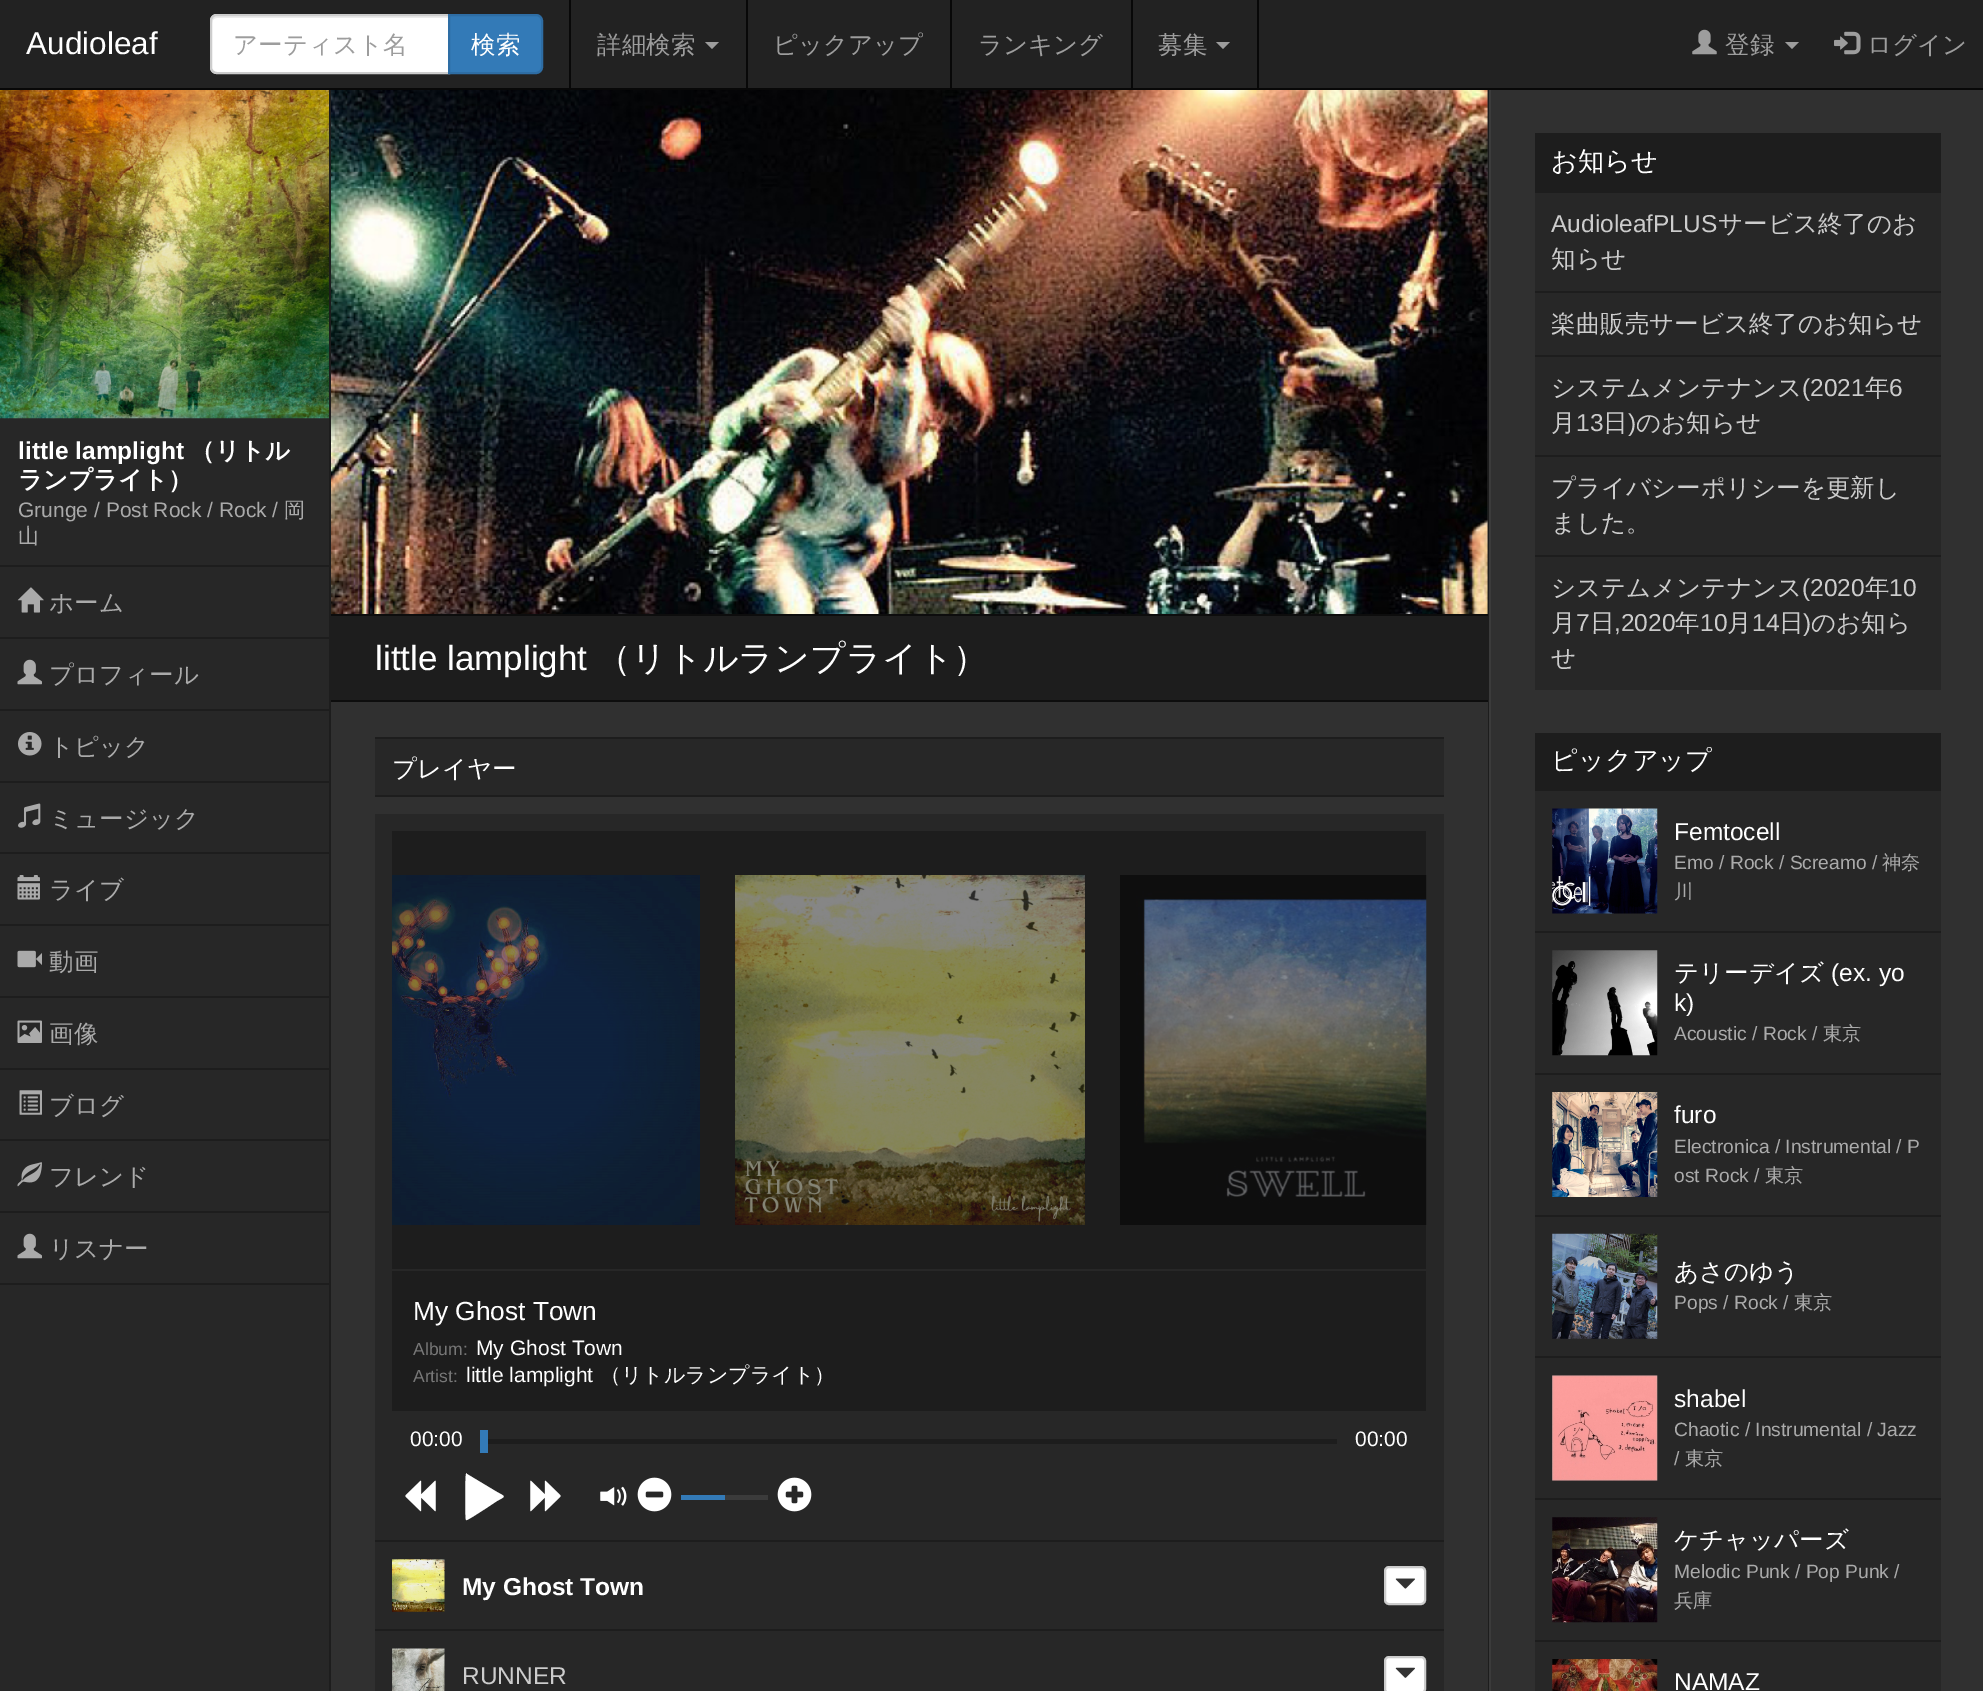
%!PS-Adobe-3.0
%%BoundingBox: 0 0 1983 1691
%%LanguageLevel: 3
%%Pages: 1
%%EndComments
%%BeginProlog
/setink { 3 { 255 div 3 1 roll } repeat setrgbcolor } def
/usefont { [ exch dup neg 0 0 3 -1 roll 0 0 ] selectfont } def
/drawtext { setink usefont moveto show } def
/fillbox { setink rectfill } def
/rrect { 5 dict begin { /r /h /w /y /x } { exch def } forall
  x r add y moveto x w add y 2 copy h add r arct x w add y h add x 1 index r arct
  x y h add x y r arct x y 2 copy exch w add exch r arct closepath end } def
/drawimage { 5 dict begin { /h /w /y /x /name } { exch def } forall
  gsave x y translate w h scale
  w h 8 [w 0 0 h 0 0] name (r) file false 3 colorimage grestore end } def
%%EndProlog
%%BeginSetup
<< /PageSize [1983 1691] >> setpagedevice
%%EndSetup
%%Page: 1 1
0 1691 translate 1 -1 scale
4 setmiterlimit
0 0 1983 1691 48 48 48 fillbox
0 0 1983 88 34 34 34 fillbox
329 89 2 1602 29 29 29 fillbox
1488 89 1 1602 29 29 29 fillbox
1489 89 2 1602 59 59 59 fillbox
0 88 1983 2 8 8 8 fillbox
(Audioleaf) 26 54 /LiberationSans-Regular 31.5 255 255 255 drawtext
217 14 moveto 450 14 lineto 450 74 lineto 217 74 lineto 213 74 210 71 210 67 curveto 210 21 lineto 210 17 213 14 217 14 curveto closepath fill
236 236 236 setink
217 18 moveto 448 18 lineto 448 16 lineto 217 16 lineto 213 16 212 20 212 23 curveto 212 20 214 18 217 18 curveto closepath fill
204 204 204 setink
2 setlinewidth
217 15 moveto 449 15 lineto 449 73 lineto 217 73 lineto 213.5 73 211 70.5 211 67 curveto 211 21 lineto 211 17.5 213.5 15 217 15 curveto closepath stroke
(アーティスト名) 233 53 /WenQuanYiZenHei-Medium 24.5 157 157 157 drawtext
51 122 183 setink
449 15 moveto 536 15 lineto 539.5 15 542 17.5 542 21 curveto 542 67 lineto 542 70.5 539.5 73 536 73 curveto 449 73 lineto closepath gsave fill grestore
46 109 164 setink
stroke
(検索) 471 53 /WenQuanYiZenHei-Medium 24.5 255 255 255 drawtext
569 0 2 88 8 8 8 fillbox
746 0 2 88 8 8 8 fillbox
(詳細検索) 597 53 /WenQuanYiZenHei-Medium 24.5 157 157 157 drawtext
705 42 moveto 719 42 lineto 712 49 lineto closepath fill
950 0 2 88 8 8 8 fillbox
(ピックアップ) 773 53 /WenQuanYiZenHei-Medium 24.5 157 157 157 drawtext
1131 0 2 88 8 8 8 fillbox
(ランキング) 978 53 /WenQuanYiZenHei-Medium 24.5 157 157 157 drawtext
1257 0 2 88 8 8 8 fillbox
(募集) 1158 53 /WenQuanYiZenHei-Medium 24.5 157 157 157 drawtext
1216 42 moveto 1230 42 lineto 1223 49 lineto closepath fill
(assets/img1.rgb) 1692 29 25 26 drawimage
(登録) 1725 53 /WenQuanYiZenHei-Medium 24.5 157 157 157 drawtext
1785 42 moveto 1799 42 lineto 1792 49 lineto closepath fill
(assets/img2.rgb) 1834 31 27 24 drawimage
(ログイン) 1867 53 /WenQuanYiZenHei-Medium 24.5 157 157 157 drawtext
0 418 329 1273 39 39 39 fillbox
0 565 329 2 29 29 29 fillbox
(assets/img3.rgb) 0 90 329 329 drawimage
(little lamplight) 18 459 /LiberationSans-Bold 24.5 255 255 255 drawtext
(（リトル) 190 459 /WenQuanYiZenHei-Bold 24.5 255 255 255 drawtext
(ランプライト）) 18 488 /WenQuanYiZenHei-Bold 24.5 255 255 255 drawtext
(Grunge / Post Rock / Rock /) 18 517 /LiberationSans-Regular 21 170 170 170 drawtext
(岡) 284 517 /WenQuanYiZenHei-Medium 21 170 170 170 drawtext
(山) 18 543 /WenQuanYiZenHei-Medium 21 170 170 170 drawtext
0 637 329 2 29 29 29 fillbox
(assets/img4.rgb) 17 587 27 26 drawimage
(ホーム) 49 611 /WenQuanYiZenHei-Medium 24.5 170 170 170 drawtext
0 709 329 2 29 29 29 fillbox
(assets/img5.rgb) 17 659 25 26 drawimage
(プロフィール) 49 683 /WenQuanYiZenHei-Medium 24.5 170 170 170 drawtext
0 781 329 2 29 29 29 fillbox
(assets/img6.rgb) 18 732 24 24 drawimage
(トピック) 49 755 /WenQuanYiZenHei-Medium 24.5 170 170 170 drawtext
0 852 329 2 29 29 29 fillbox
(assets/img7.rgb) 18 803 23 25 drawimage
(ミュージック) 49 827 /WenQuanYiZenHei-Medium 24.5 170 170 170 drawtext
0 924 329 2 29 29 29 fillbox
(assets/img8.rgb) 17 875 23 25 drawimage
(ライブ) 49 898 /WenQuanYiZenHei-Medium 24.5 170 170 170 drawtext
0 996 329 2 29 29 29 fillbox
(assets/img9.rgb) 17 950 25 18 drawimage
(動画) 49 970 /WenQuanYiZenHei-Medium 24.5 170 170 170 drawtext
0 1068 329 2 29 29 29 fillbox
(assets/img10.rgb) 17 1020 25 23 drawimage
(画像) 49 1042 /WenQuanYiZenHei-Medium 24.5 170 170 170 drawtext
0 1139 329 2 29 29 29 fillbox
(assets/img11.rgb) 19 1090 23 25 drawimage
(ブログ) 49 1114 /WenQuanYiZenHei-Medium 24.5 170 170 170 drawtext
0 1211 329 2 29 29 29 fillbox
(assets/img12.rgb) 17 1162 25 25 drawimage
(フレンド) 49 1185 /WenQuanYiZenHei-Medium 24.5 170 170 170 drawtext
0 1283 329 2 29 29 29 fillbox
(assets/img5.rgb) 17 1233 25 26 drawimage
(リスナー) 49 1257 /WenQuanYiZenHei-Medium 24.5 170 170 170 drawtext
(assets/img13.rgb) 331 90 1157 524 drawimage
331 616 1157 84 29 29 29 fillbox
331 614 1157 2 13 13 13 fillbox
331 700 1157 2 13 13 13 fillbox
(little lamplight) 375 670 /LiberationSans-Regular 35 255 255 255 drawtext
(（リトルランプライト）) 596 670 /WenQuanYiZenHei-Medium 35 255 255 255 drawtext
375 739 1069 56 39 39 39 fillbox
375 737 1069 2 29 29 29 fillbox
375 795 1069 2 29 29 29 fillbox
(プレイヤー) 392 777 /WenQuanYiZenHei-Medium 24.5 255 255 255 drawtext
375 814 1069 877 39 39 39 fillbox
392 831 1034 580 29 29 29 fillbox
392 1269 1034 2 39 39 39 fillbox
(assets/img14.rgb) 392 875 308 350 drawimage
(assets/img15.rgb) 735 875 350 350 drawimage
(assets/img16.rgb) 1120 875 307 350 drawimage
(My Ghost Town) 413 1320 /LiberationSans-Regular 26.25 255 255 255 drawtext
(Album:) 413 1355 /LiberationSans-Regular 17.5 119 119 119 drawtext
(My Ghost Town) 476 1355 /LiberationSans-Regular 21 255 255 255 drawtext
(Artist:) 413 1382 /LiberationSans-Regular 17.5 119 119 119 drawtext
(little lamplight) 466 1382 /LiberationSans-Regular 21 255 255 255 drawtext
(（リトルランプライト）) 600 1382 /WenQuanYiZenHei-Medium 21 255 255 255 drawtext
(00:00) 410 1446 /LiberationSans-Regular 21 255 255 255 drawtext
480 1439 857 5 29 29 29 fillbox
480 1430 8 23 51 122 183 fillbox
(00:00) 1355 1446 /LiberationSans-Regular 21 255 255 255 drawtext
(assets/img17.rgb) 405 1480 31 32 drawimage
467 1474 moveto 497 1492 lineto 506 1497 506 1496 497 1501 curveto 485 1509 lineto 483 1510 467 1521 466 1520 curveto 465 1519 465 1478 466 1474 curveto 466 1473 467 1473 467 1474 curveto closepath fill
(assets/img18.rgb) 530 1480 31 32 drawimage
(assets/img19.rgb) 600 1486 27 20 drawimage
(assets/img20.rgb) 637 1477 35 35 drawimage
681 1495 44 5 51 122 183 fillbox
725 1495 43 5 59 59 59 fillbox
(assets/img21.rgb) 777 1477 35 35 drawimage
375 1540 1069 2 29 29 29 fillbox
(assets/img22.rgb) 392 1559 53 53 drawimage
(My Ghost Town) 462 1595 /LiberationSans-Bold 24.5 255 255 255 drawtext
1385 1567 40 37 4 rrect gsave fill grestore
204 204 204 setink
stroke
(assets/img23.rgb) 1395 1578 20 11 drawimage
375 1629 1069 2 29 29 29 fillbox
(assets/img24.rgb) 392 1648 53 43 drawimage
(RUNNER) 462 1684 /LiberationSans-Regular 24.5 204 204 204 drawtext
255 255 255 setink
1385 1657 40 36 4 rrect gsave fill grestore
204 204 204 setink
stroke
(assets/img25.rgb) 1395 1667 20 11 drawimage
1535 133 406 60 29 29 29 fillbox
(お知らせ) 1551 170 /WenQuanYiZenHei-Medium 26.25 255 255 255 drawtext
1535 193 406 98 39 39 39 fillbox
(AudioleafPLUS) 1551 232 /LiberationSans-Regular 24.5 204 204 204 drawtext
(サービス終了のお) 1718 232 /WenQuanYiZenHei-Medium 24.5 204 204 204 drawtext
(知らせ) 1551 267 /WenQuanYiZenHei-Medium 24.5 204 204 204 drawtext
1535 293 406 62 39 39 39 fillbox
1535 291 406 2 29 29 29 fillbox
(楽曲販売サービス終了のお知らせ) 1551 332 /WenQuanYiZenHei-Medium 24.5 204 204 204 drawtext
1535 357 406 98 39 39 39 fillbox
1535 355 406 2 29 29 29 fillbox
(システムメンテナンス) 1551 396 /WenQuanYiZenHei-Medium 24.5 204 204 204 drawtext
(\(2021) 1802 396 /LiberationSans-Regular 24.5 204 204 204 drawtext
(年) 1865 396 /WenQuanYiZenHei-Medium 24.5 204 204 204 drawtext
(6) 1889 396 /LiberationSans-Regular 24.5 204 204 204 drawtext
(月) 1551 431 /WenQuanYiZenHei-Medium 24.5 204 204 204 drawtext
(13) 1576 431 /LiberationSans-Regular 24.5 204 204 204 drawtext
(日) 1603 431 /WenQuanYiZenHei-Medium 24.5 204 204 204 drawtext
(\)) 1628 431 /LiberationSans-Regular 24.5 204 204 204 drawtext
(のお知らせ) 1636 431 /WenQuanYiZenHei-Medium 24.5 204 204 204 drawtext
1535 457 406 98 39 39 39 fillbox
1535 455 406 2 29 29 29 fillbox
(プライバシーポリシーを更新し) 1551 496 /WenQuanYiZenHei-Medium 24.5 204 204 204 drawtext
(ました。) 1551 531 /WenQuanYiZenHei-Medium 24.5 204 204 204 drawtext
1535 557 406 133 39 39 39 fillbox
1535 555 406 2 29 29 29 fillbox
(システムメンテナンス) 1551 596 /WenQuanYiZenHei-Medium 24.5 204 204 204 drawtext
(\(2020) 1802 596 /LiberationSans-Regular 24.5 204 204 204 drawtext
(年) 1865 596 /WenQuanYiZenHei-Medium 24.5 204 204 204 drawtext
(10) 1889 596 /LiberationSans-Regular 24.5 204 204 204 drawtext
(月) 1551 631 /WenQuanYiZenHei-Medium 24.5 204 204 204 drawtext
(7) 1576 631 /LiberationSans-Regular 24.5 204 204 204 drawtext
(日) 1590 631 /WenQuanYiZenHei-Medium 24.5 204 204 204 drawtext
(,2020) 1614 631 /LiberationSans-Regular 24.5 204 204 204 drawtext
(年) 1675 631 /WenQuanYiZenHei-Medium 24.5 204 204 204 drawtext
(10) 1700 631 /LiberationSans-Regular 24.5 204 204 204 drawtext
(月) 1727 631 /WenQuanYiZenHei-Medium 24.5 204 204 204 drawtext
(14) 1752 631 /LiberationSans-Regular 24.5 204 204 204 drawtext
(日) 1779 631 /WenQuanYiZenHei-Medium 24.5 204 204 204 drawtext
(\)) 1803 631 /LiberationSans-Regular 24.5 204 204 204 drawtext
(のお知ら) 1811 631 /WenQuanYiZenHei-Medium 24.5 204 204 204 drawtext
(せ) 1551 666 /WenQuanYiZenHei-Medium 24.5 204 204 204 drawtext
1535 733 406 58 29 29 29 fillbox
(ピックアップ) 1551 769 /WenQuanYiZenHei-Medium 26.25 255 255 255 drawtext
1535 791 406 140 39 39 39 fillbox
(assets/img26.rgb) 1552 808 106 106 drawimage
(Femtocell) 1674 840 /LiberationSans-Regular 24.5 255 255 255 drawtext
(Emo / Rock / Screamo /) 1674 869 /LiberationSans-Regular 19.25 170 170 170 drawtext
(神奈) 1882 869 /WenQuanYiZenHei-Medium 19.25 170 170 170 drawtext
(川) 1674 898 /WenQuanYiZenHei-Medium 19.25 170 170 170 drawtext
1535 933 406 140 39 39 39 fillbox
1535 931 406 2 29 29 29 fillbox
(assets/img27.rgb) 1552 950 106 106 drawimage
(テリーデイズ) 1674 981 /WenQuanYiZenHei-Medium 24.5 255 255 255 drawtext
(\(ex. yo) 1831 981 /LiberationSans-Regular 24.5 255 255 255 drawtext
(k\)) 1674 1011 /LiberationSans-Regular 24.5 255 255 255 drawtext
(Acoustic / Rock /) 1674 1040 /LiberationSans-Regular 19.25 170 170 170 drawtext
(東京) 1823 1040 /WenQuanYiZenHei-Medium 19.25 170 170 170 drawtext
1535 1075 406 140 39 39 39 fillbox
1535 1073 406 2 29 29 29 fillbox
(assets/img28.rgb) 1552 1092 106 105 drawimage
(furo) 1674 1123 /LiberationSans-Regular 24.5 255 255 255 drawtext
(Electronica / Instrumental / P) 1674 1153 /LiberationSans-Regular 19.25 170 170 170 drawtext
(ost Rock /) 1674 1182 /LiberationSans-Regular 19.25 170 170 170 drawtext
(東京) 1765 1182 /WenQuanYiZenHei-Medium 19.25 170 170 170 drawtext
1535 1217 406 139 39 39 39 fillbox
1535 1215 406 2 29 29 29 fillbox
(assets/img29.rgb) 1552 1233 106 106 drawimage
(あさのゆう) 1674 1280 /WenQuanYiZenHei-Medium 24.5 255 255 255 drawtext
(Pops / Rock /) 1674 1309 /LiberationSans-Regular 19.25 170 170 170 drawtext
(東京) 1794 1309 /WenQuanYiZenHei-Medium 19.25 170 170 170 drawtext
1535 1358 406 140 39 39 39 fillbox
1535 1356 406 2 29 29 29 fillbox
(assets/img30.rgb) 1552 1375 106 106 drawimage
(shabel) 1674 1407 /LiberationSans-Regular 24.5 255 255 255 drawtext
(Chaotic / Instrumental / Jazz) 1674 1436 /LiberationSans-Regular 19.25 170 170 170 drawtext
(/) 1674 1465 /LiberationSans-Regular 19.25 170 170 170 drawtext
(東京) 1685 1465 /WenQuanYiZenHei-Medium 19.25 170 170 170 drawtext
1535 1500 406 140 39 39 39 fillbox
1535 1498 406 2 29 29 29 fillbox
(assets/img31.rgb) 1552 1517 106 106 drawimage
(ケチャッパーズ) 1674 1548 /WenQuanYiZenHei-Medium 24.5 255 255 255 drawtext
(Melodic Punk / Pop Punk /) 1674 1578 /LiberationSans-Regular 19.25 170 170 170 drawtext
(兵庫) 1674 1607 /WenQuanYiZenHei-Medium 19.25 170 170 170 drawtext
1535 1642 406 49 39 39 39 fillbox
1535 1640 406 2 29 29 29 fillbox
(assets/img32.rgb) 1552 1659 106 32 drawimage
(NAMAZ) 1674 1690 /LiberationSans-Regular 24.5 255 255 255 drawtext
showpage
%%EOF
